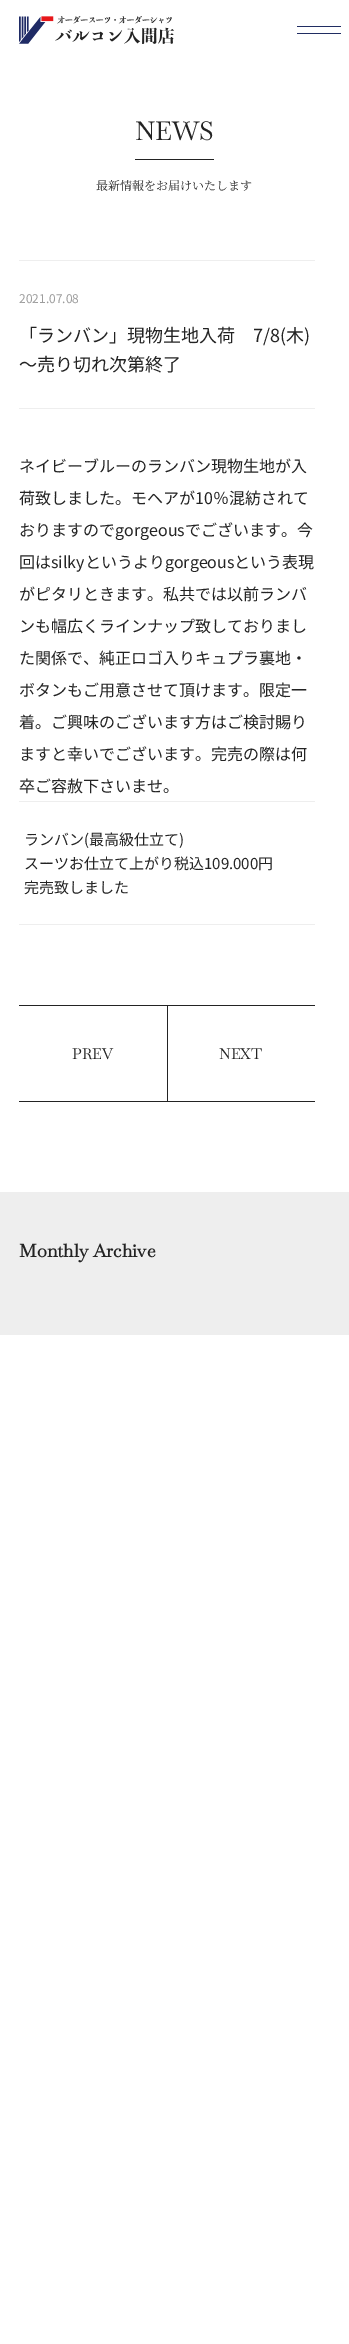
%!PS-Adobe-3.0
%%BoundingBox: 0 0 349 2344
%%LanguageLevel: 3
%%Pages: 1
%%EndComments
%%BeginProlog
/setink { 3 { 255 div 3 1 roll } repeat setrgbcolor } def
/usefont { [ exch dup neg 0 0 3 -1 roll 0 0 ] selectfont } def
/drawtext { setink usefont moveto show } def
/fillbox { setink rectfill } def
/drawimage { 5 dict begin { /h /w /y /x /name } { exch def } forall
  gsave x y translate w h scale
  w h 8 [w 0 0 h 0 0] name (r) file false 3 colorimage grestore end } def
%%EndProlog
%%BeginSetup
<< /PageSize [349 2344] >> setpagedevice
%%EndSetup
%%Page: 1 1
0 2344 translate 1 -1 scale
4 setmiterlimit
0 0 349 2344 255 255 255 fillbox
(assets/img1.rgb) 19 16 155 28 drawimage
297 26 44 1 32 45 98 fillbox
297 33 44 1 32 45 98 fillbox
135 159 79 1 35 35 35 fillbox
(NEWS) 135 140 /Baskervville-Regular 26 35 35 35 drawtext
(最新情報をお届けいたします) 96 190 /NotoSerifJP-Regular 12 35 35 35 drawtext
19 260 296 1 238 238 238 fillbox
19 408 296 1 238 238 238 fillbox
(2021.07.08) 19 303 /NotoSansJP-Regular 12 157 157 157 drawtext
(「ランバン」現物生地入荷　7/8\(木\)) 19 342 /NotoSansJP-Regular 18 35 35 35 drawtext
(～売り切れ次第終了) 19 371 /NotoSansJP-Regular 18 35 35 35 drawtext
(ネイビーブルーのランバン現物生地が入) 19 472 /NotoSansJP-Regular 16 35 35 35 drawtext
(荷致しました。モヘアが10％混紡されて) 19 504 /NotoSansJP-Regular 16 35 35 35 drawtext
(おりますのでgorgeousでございます。今) 19 536 /NotoSansJP-Regular 16 35 35 35 drawtext
(回はsilkyというよりgorgeousという表現) 19 568 /NotoSansJP-Regular 16 35 35 35 drawtext
(がピタリときます。私共では以前ランバ) 19 600 /NotoSansJP-Regular 16 35 35 35 drawtext
(ンも幅広くラインナップ致しておりまし) 19 632 /NotoSansJP-Regular 16 35 35 35 drawtext
(た関係で、純正ロゴ入りキュプラ裏地・) 19 664 /NotoSansJP-Regular 16 35 35 35 drawtext
(ボタンもご用意させて頂けます。限定一) 19 696 /NotoSansJP-Regular 16 35 35 35 drawtext
(着。ご興味のございます方はご検討賜り) 19 728 /NotoSansJP-Regular 16 35 35 35 drawtext
(ますと幸いでございます。完売の際は何) 19 760 /NotoSansJP-Regular 16 35 35 35 drawtext
(卒ご容赦下さいませ。) 19 792 /NotoSansJP-Regular 16 35 35 35 drawtext
19 801 296 1 238 238 238 fillbox
(ランバン\(最高級仕立て\)) 24 845 /NotoSansJP-Regular 15 35 35 35 drawtext
(スーツお仕立て上がり税込109.000円) 24 869 /NotoSansJP-Regular 15 35 35 35 drawtext
19 924 296 1 238 238 238 fillbox
(完売致しました) 24 893 /NotoSansJP-Regular 15 35 35 35 drawtext
19 1005 296 1 35 35 35 fillbox
19 1101 296 1 35 35 35 fillbox
167 1006 1 95 35 35 35 fillbox
(PREV) 72 1059 /Baskervville-Regular 15 35 35 35 drawtext
(NEXT) 219 1059 /Baskervville-Regular 15 35 35 35 drawtext
0 1192 349 143 238 238 238 fillbox
(Monthly Archive) 19 1257 /Baskervville-Bold 18 35 35 35 drawtext
showpage
%%EOF
